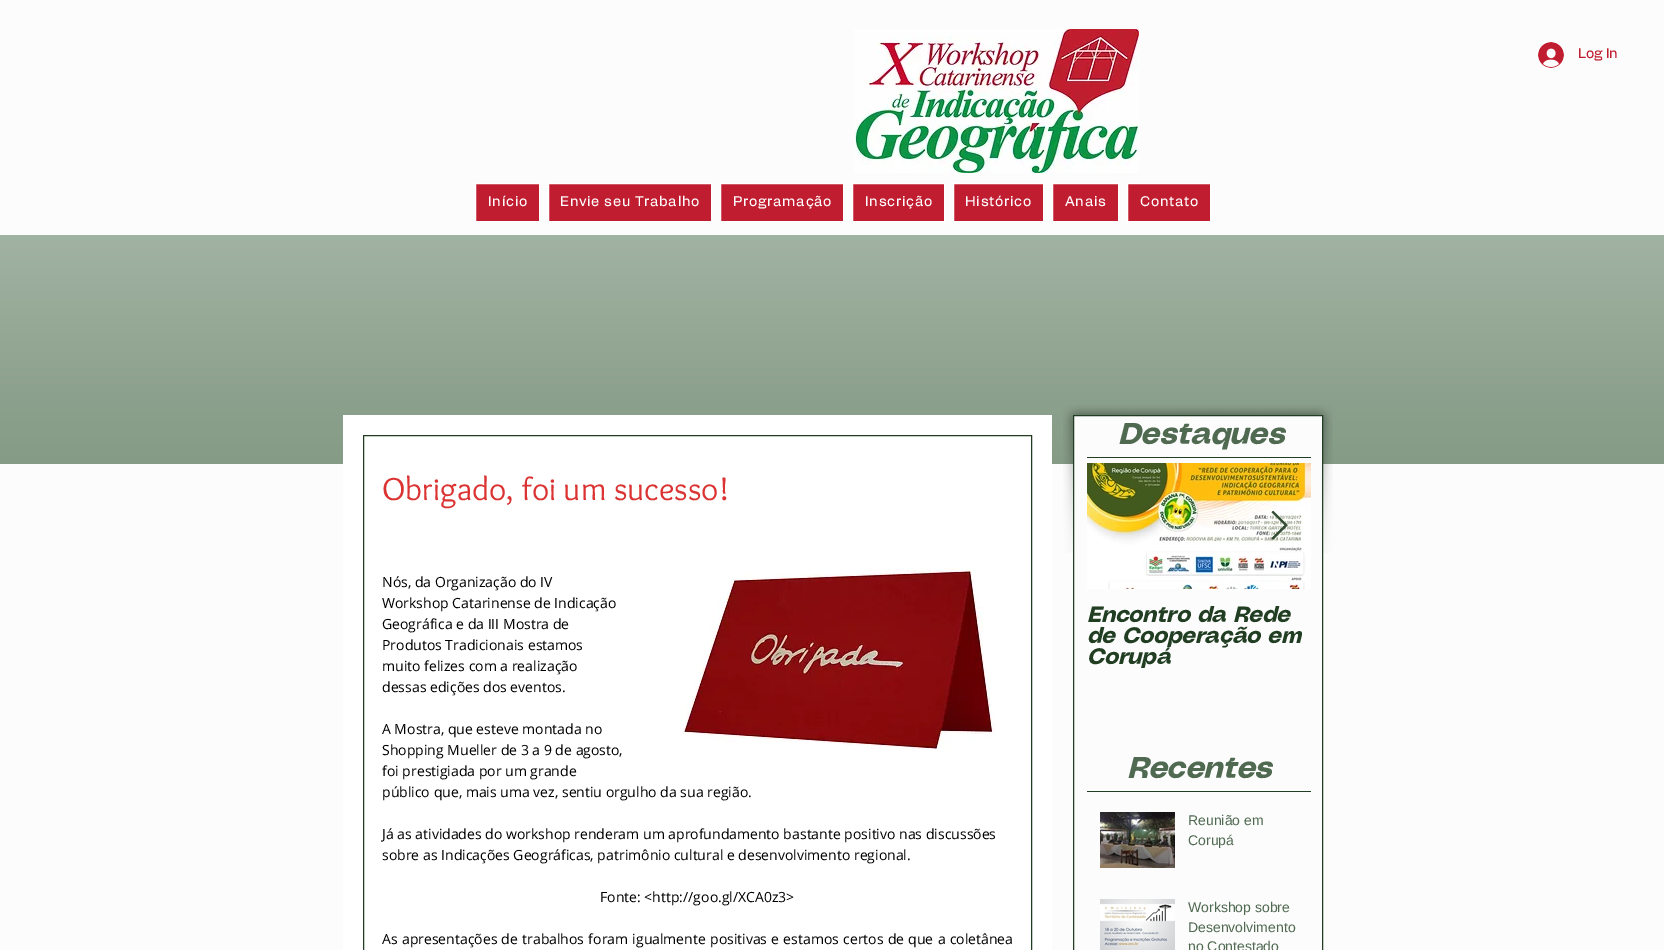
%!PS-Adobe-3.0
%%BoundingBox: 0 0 1664 950
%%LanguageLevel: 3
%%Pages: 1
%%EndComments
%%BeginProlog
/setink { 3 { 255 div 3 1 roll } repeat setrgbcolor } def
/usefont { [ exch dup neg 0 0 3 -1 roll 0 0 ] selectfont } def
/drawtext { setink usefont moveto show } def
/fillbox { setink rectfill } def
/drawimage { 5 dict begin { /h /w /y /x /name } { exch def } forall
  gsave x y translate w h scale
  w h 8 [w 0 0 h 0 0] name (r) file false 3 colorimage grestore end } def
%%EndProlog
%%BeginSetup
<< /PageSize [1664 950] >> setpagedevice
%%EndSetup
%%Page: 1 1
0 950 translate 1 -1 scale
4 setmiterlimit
0 0 1664 950 252 252 252 fillbox
(assets/img1.rgb) 854 29 285 144 drawimage
(assets/img2.rgb) 1538 42 26 26 drawimage
(Log In) 1578 58 /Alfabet-Regular 14 193 29 48 drawtext
475.5 183.5 moveto 539.5 183.5 lineto 539.5 221.5 lineto 475.5 221.5 lineto closepath gsave fill grestore
255 255 255 setink
stroke
488 206 moveto 0.75 0 (Início) ashow
193 29 48 setink
548.5 183.5 moveto 711.5 183.5 lineto 711.5 221.5 lineto 548.5 221.5 lineto closepath gsave fill grestore
255 255 255 setink
stroke
560 206 moveto 0.75 0 (Envie seu Trabalho) ashow
193 29 48 setink
720.5 183.5 moveto 843.5 183.5 lineto 843.5 221.5 lineto 720.5 221.5 lineto closepath gsave fill grestore
255 255 255 setink
stroke
733 206 moveto 0.75 0 (Programação) ashow
193 29 48 setink
852.5 183.5 moveto 944.5 183.5 lineto 944.5 221.5 lineto 852.5 221.5 lineto closepath gsave fill grestore
255 255 255 setink
stroke
865 206 moveto 0.75 0 (Inscrição) ashow
193 29 48 setink
953.5 183.5 moveto 1043.5 183.5 lineto 1043.5 221.5 lineto 953.5 221.5 lineto closepath gsave fill grestore
255 255 255 setink
stroke
965 206 moveto 0.75 0 (Histórico) ashow
193 29 48 setink
1052.5 183.5 moveto 1118.5 183.5 lineto 1118.5 221.5 lineto 1052.5 221.5 lineto closepath gsave fill grestore
255 255 255 setink
stroke
1065 206 moveto 0.75 0 (Anais) ashow
193 29 48 setink
1127.5 183.5 moveto 1210.5 183.5 lineto 1210.5 221.5 lineto 1127.5 221.5 lineto closepath gsave fill grestore
255 255 255 setink
stroke
1140 206 moveto 0.75 0 (Contato) ashow
0 235 1664 229 128 151 129 fillbox
(assets/img3.rgb) 0 235 1664 229 drawimage
343 415 709 535 255 255 255 fillbox
33 62 35 setink
363.5 435.5 668 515 rectstroke
(Obrigado, foi um sucesso!) 382 500 /Overlock-Regular 33 219 50 50 drawtext
(Nós, da Organização do IV) 382 587 /OpenSans-Regular 14 0 0 0 drawtext
(Workshop Catarinense de Indicação) 382 608 /OpenSans-Regular 14 0 0 0 drawtext
(Geográfica e da III Mostra de) 382 629 /OpenSans-Regular 14 0 0 0 drawtext
(Produtos Tradicionais estamos) 382 650 /OpenSans-Regular 14 0 0 0 drawtext
(muito felizes com a realização) 382 671 /OpenSans-Regular 14 0 0 0 drawtext
(dessas edições dos eventos.) 382 692 /OpenSans-Regular 14 0 0 0 drawtext
(assets/img4.rgb) 679 567 317 183 drawimage
(A Mostra, que esteve montada no) 382 734 /OpenSans-Regular 14 0 0 0 drawtext
(Shopping Mueller de 3 a 9 de agosto,) 382 755 /OpenSans-Regular 14 0 0 0 drawtext
(foi prestigiada por um grande) 382 776 /OpenSans-Regular 14 0 0 0 drawtext
(público que, mais uma vez, sentiu orgulho da sua região.) 382 797 /OpenSans-Regular 14 0 0 0 drawtext
(Já as atividades do workshop renderam um aprofundamento bastante positivo nas discussões) 382 839 /OpenSans-Regular 14 0 0 0 drawtext
(sobre as Indicações Geográficas, patrimônio cultural e desenvolvimento regional.) 382 860 /OpenSans-Regular 14 0 0 0 drawtext
(Fonte: <http://goo.gl/XCA0z3>) 600 902 /OpenSans-Regular 14 0 0 0 drawtext
382 944 moveto 0.6 0 32 (As apresentações de trabalhos foram igualmente positivas e estamos certos de que a coletânea) widthshow
(assets/img5.rgb) 1063 405 45 148 drawimage
(assets/img6.rgb) 1108 405 180 10 drawimage
(assets/img7.rgb) 1288 405 45 148 drawimage
1074 416 248 137 252 252 252 fillbox
33 62 35 setink
1073.5 415.5 249 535 rectstroke
(Destaques) 1118 444 /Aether-BoldItalic 30 80 106 82 drawtext
1087 457 224 1 33 62 35 fillbox
(assets/img9.rgb) 1087 463 224 126 drawimage
(assets/img8.rgb) 1271 511 17 29 drawimage
(Encontro da Rede) 1087 622 /Aether-BoldItalic 22 33 62 35 drawtext
(de Cooperação em) 1087 643 /Aether-BoldItalic 22 33 62 35 drawtext
(Corupá) 1087 664 /Aether-BoldItalic 22 33 62 35 drawtext
(Recentes) 1127 778 /Aether-BoldItalic 30 80 106 82 drawtext
1087 791 224 1 33 62 35 fillbox
(assets/img10.rgb) 1100 812 75 56 drawimage
(Reunião em) 1188 825 /LiberationSans-Regular 14 80 106 82 drawtext
(Corupá) 1188 845 /LiberationSans-Regular 14 80 106 82 drawtext
(assets/img11.rgb) 1100 899 75 51 drawimage
(Workshop sobre) 1188 912 /LiberationSans-Regular 14 80 106 82 drawtext
(Desenvolvimento) 1188 932 /LiberationSans-Regular 14 80 106 82 drawtext
(no Contestado) 1188 951 /LiberationSans-Regular 14 80 106 82 drawtext
showpage
%%EOF
